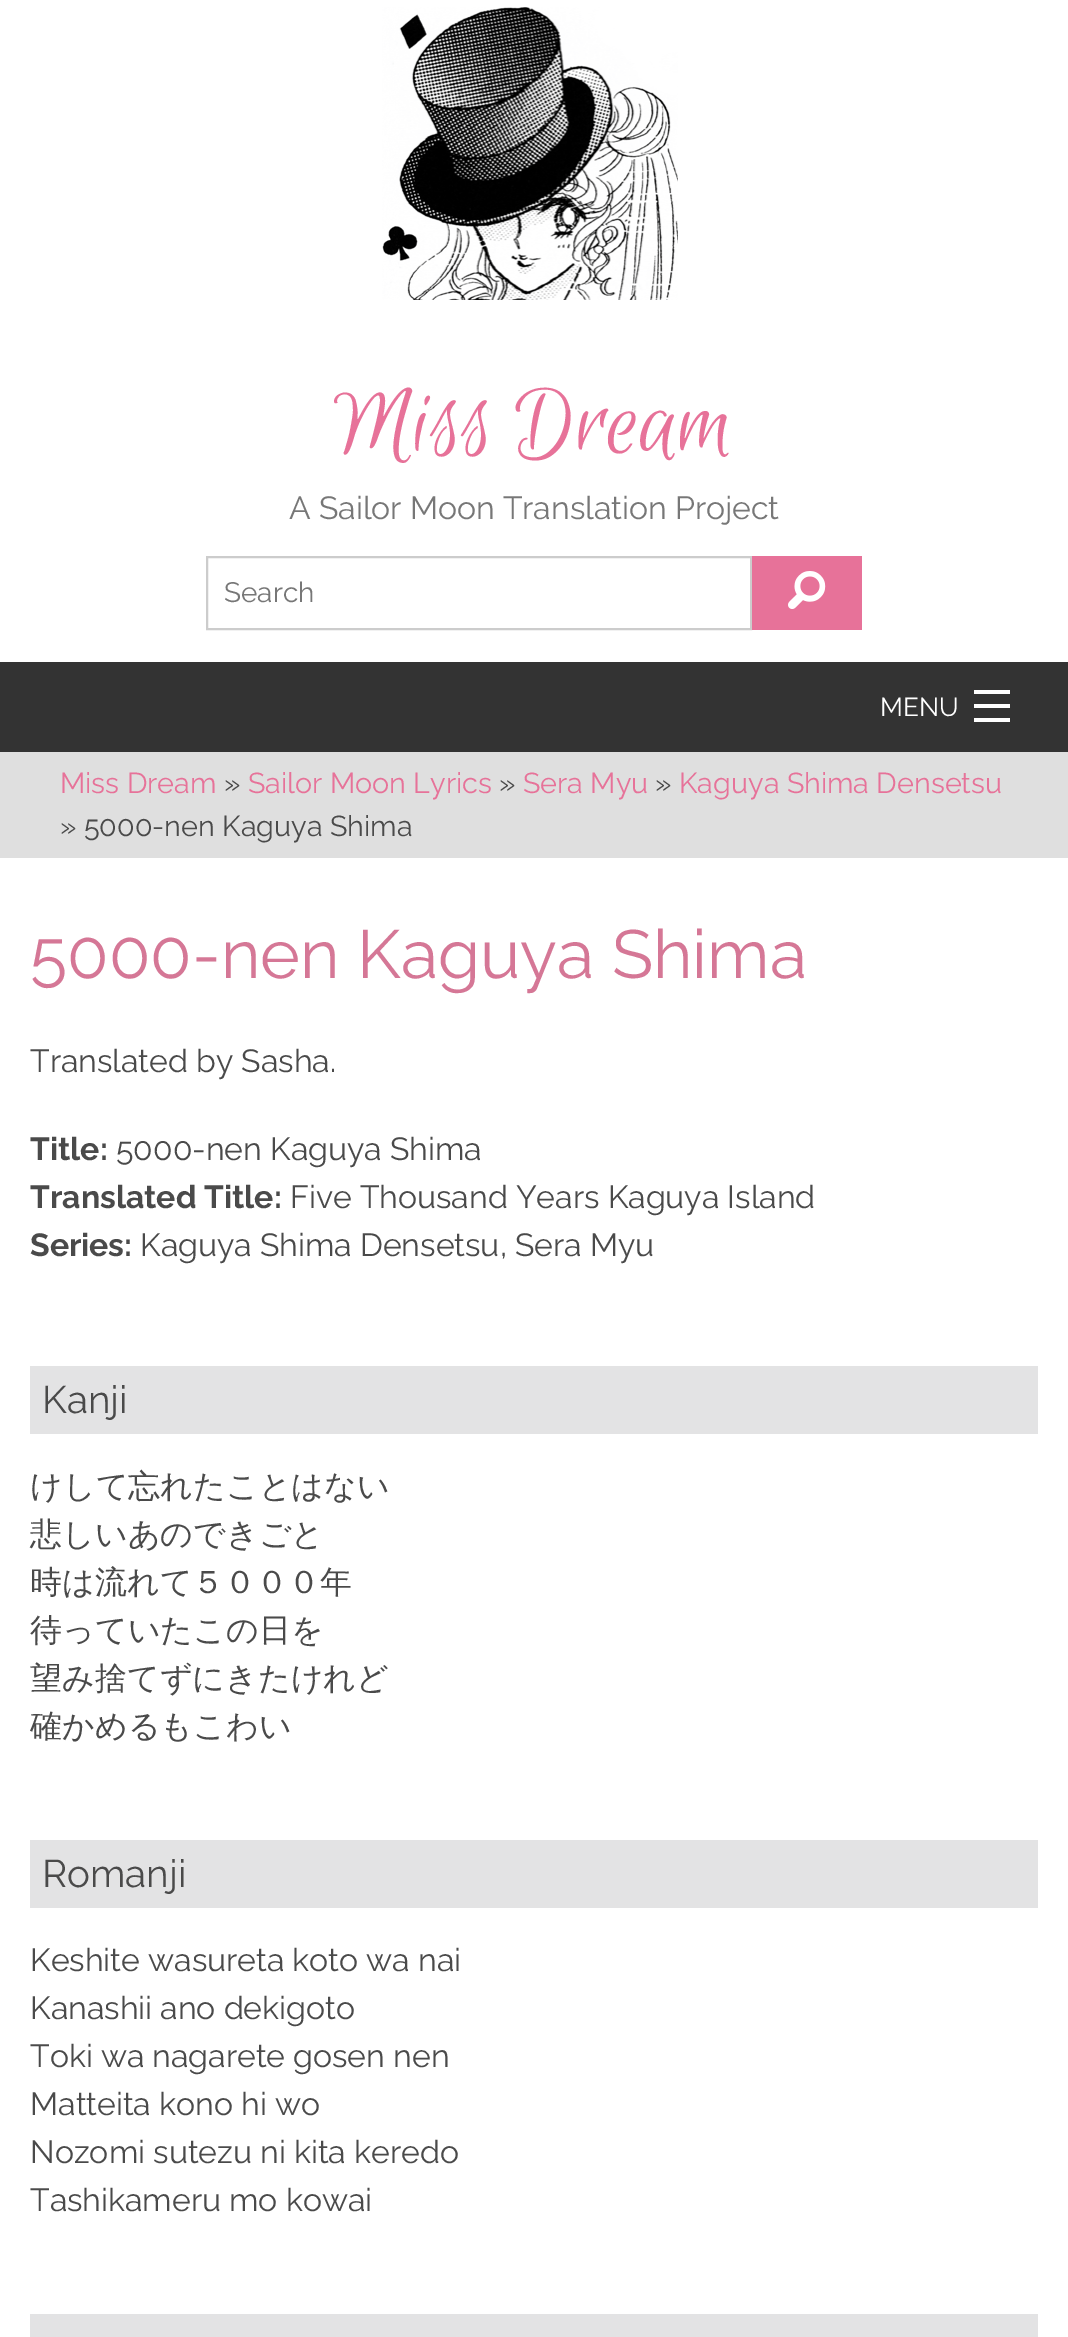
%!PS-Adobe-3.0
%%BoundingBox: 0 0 1068 2337
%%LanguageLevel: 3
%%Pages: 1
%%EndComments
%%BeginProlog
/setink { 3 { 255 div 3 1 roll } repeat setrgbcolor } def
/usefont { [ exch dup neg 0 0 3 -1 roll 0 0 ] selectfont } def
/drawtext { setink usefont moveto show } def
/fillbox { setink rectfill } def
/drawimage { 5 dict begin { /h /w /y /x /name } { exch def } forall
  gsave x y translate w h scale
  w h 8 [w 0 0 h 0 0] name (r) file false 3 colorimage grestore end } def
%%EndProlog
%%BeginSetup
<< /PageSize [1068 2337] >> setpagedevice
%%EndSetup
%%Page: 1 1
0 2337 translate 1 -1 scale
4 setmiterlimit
0 0 1068 2337 255 255 255 fillbox
(assets/img1.rgb) 382 7 296 293 drawimage
(Miss Dream) 334 451 /EuphoriaScript-Regular 102.5 231 114 153 drawtext
(A Sailor Moon Translation Project) 289 519 /Raleway-Regular 32 119 119 119 drawtext
204 204 204 setink
2 setlinewidth
207 557 544 72 rectstroke
(Search) 224 602 /Raleway-Regular 28 119 119 119 drawtext
752 556 110 74 231 114 153 fillbox
(assets/img2.rgb) 788 571 38 38 drawimage
0 662 1068 90 51 51 51 fillbox
(MENU) 880 716 /Raleway-Regular 26 255 255 255 drawtext
974 718 36 4 255 255 255 fillbox
974 704 36 4 255 255 255 fillbox
974 690 36 4 255 255 255 fillbox
0 752 1068 106 223 223 223 fillbox
(Miss Dream) 60 793 /Raleway-Regular 28.75 231 114 153 drawtext
(») 224 793 /Raleway-Regular 28.75 74 74 74 drawtext
(Sailor Moon Lyrics) 248 793 /Raleway-Regular 28.75 231 114 153 drawtext
(») 499 793 /Raleway-Regular 28.75 74 74 74 drawtext
(Sera Myu) 523 793 /Raleway-Regular 28.75 231 114 153 drawtext
(») 655 793 /Raleway-Regular 28.75 74 74 74 drawtext
(Kaguya Shima Densetsu) 679 793 /Raleway-Regular 28.75 231 114 153 drawtext
(» 5000-nen Kaguya Shima) 60 836 /Raleway-Regular 28.75 74 74 74 drawtext
(5000-nen Kaguya Shima) 30 978 /Raleway-Regular 68 213 119 150 drawtext
(Translated by Sasha.) 30 1072 /Raleway-Regular 32 74 74 74 drawtext
(Title:) 30 1160 /Raleway-Bold 32 74 74 74 drawtext
(5000-nen Kaguya Shima) 116 1160 /Raleway-Regular 32 74 74 74 drawtext
(Translated Title:) 30 1208 /Raleway-Bold 32 74 74 74 drawtext
(Five Thousand Years Kaguya Island) 290 1208 /Raleway-Regular 32 74 74 74 drawtext
(Series:) 30 1256 /Raleway-Bold 32 74 74 74 drawtext
(Kaguya Shima Densetsu, Sera Myu) 140 1256 /Raleway-Regular 32 74 74 74 drawtext
30 1366 1008 68 227 227 228 fillbox
(Kanji) 42 1413 /Raleway-Regular 38.5 74 74 74 drawtext
(けして忘れたことはない) 30 1497 /WenQuanYiZenHei-Medium 32 74 74 74 drawtext
(悲しいあのできごと) 30 1545 /WenQuanYiZenHei-Medium 32 74 74 74 drawtext
(時は流れて５０００年) 30 1593 /WenQuanYiZenHei-Medium 32 74 74 74 drawtext
(待っていたこの日を) 30 1641 /WenQuanYiZenHei-Medium 32 74 74 74 drawtext
(望み捨てずにきたけれど) 30 1689 /WenQuanYiZenHei-Medium 32 74 74 74 drawtext
(確かめるもこわい) 30 1737 /WenQuanYiZenHei-Medium 32 74 74 74 drawtext
30 1840 1008 68 227 227 228 fillbox
(Romanji) 42 1887 /Raleway-Regular 38.5 74 74 74 drawtext
(Keshite wasureta koto wa nai) 30 1971 /Raleway-Regular 32 74 74 74 drawtext
(Kanashii ano dekigoto) 30 2019 /Raleway-Regular 32 74 74 74 drawtext
(Toki wa nagarete gosen nen) 30 2067 /Raleway-Regular 32 74 74 74 drawtext
(Matteita kono hi wo) 30 2115 /Raleway-Regular 32 74 74 74 drawtext
(Nozomi sutezu ni kita keredo) 30 2163 /Raleway-Regular 32 74 74 74 drawtext
(Tashikameru mo kowai) 30 2211 /Raleway-Regular 32 74 74 74 drawtext
30 2314 1008 23 227 227 228 fillbox
showpage
%%EOF
